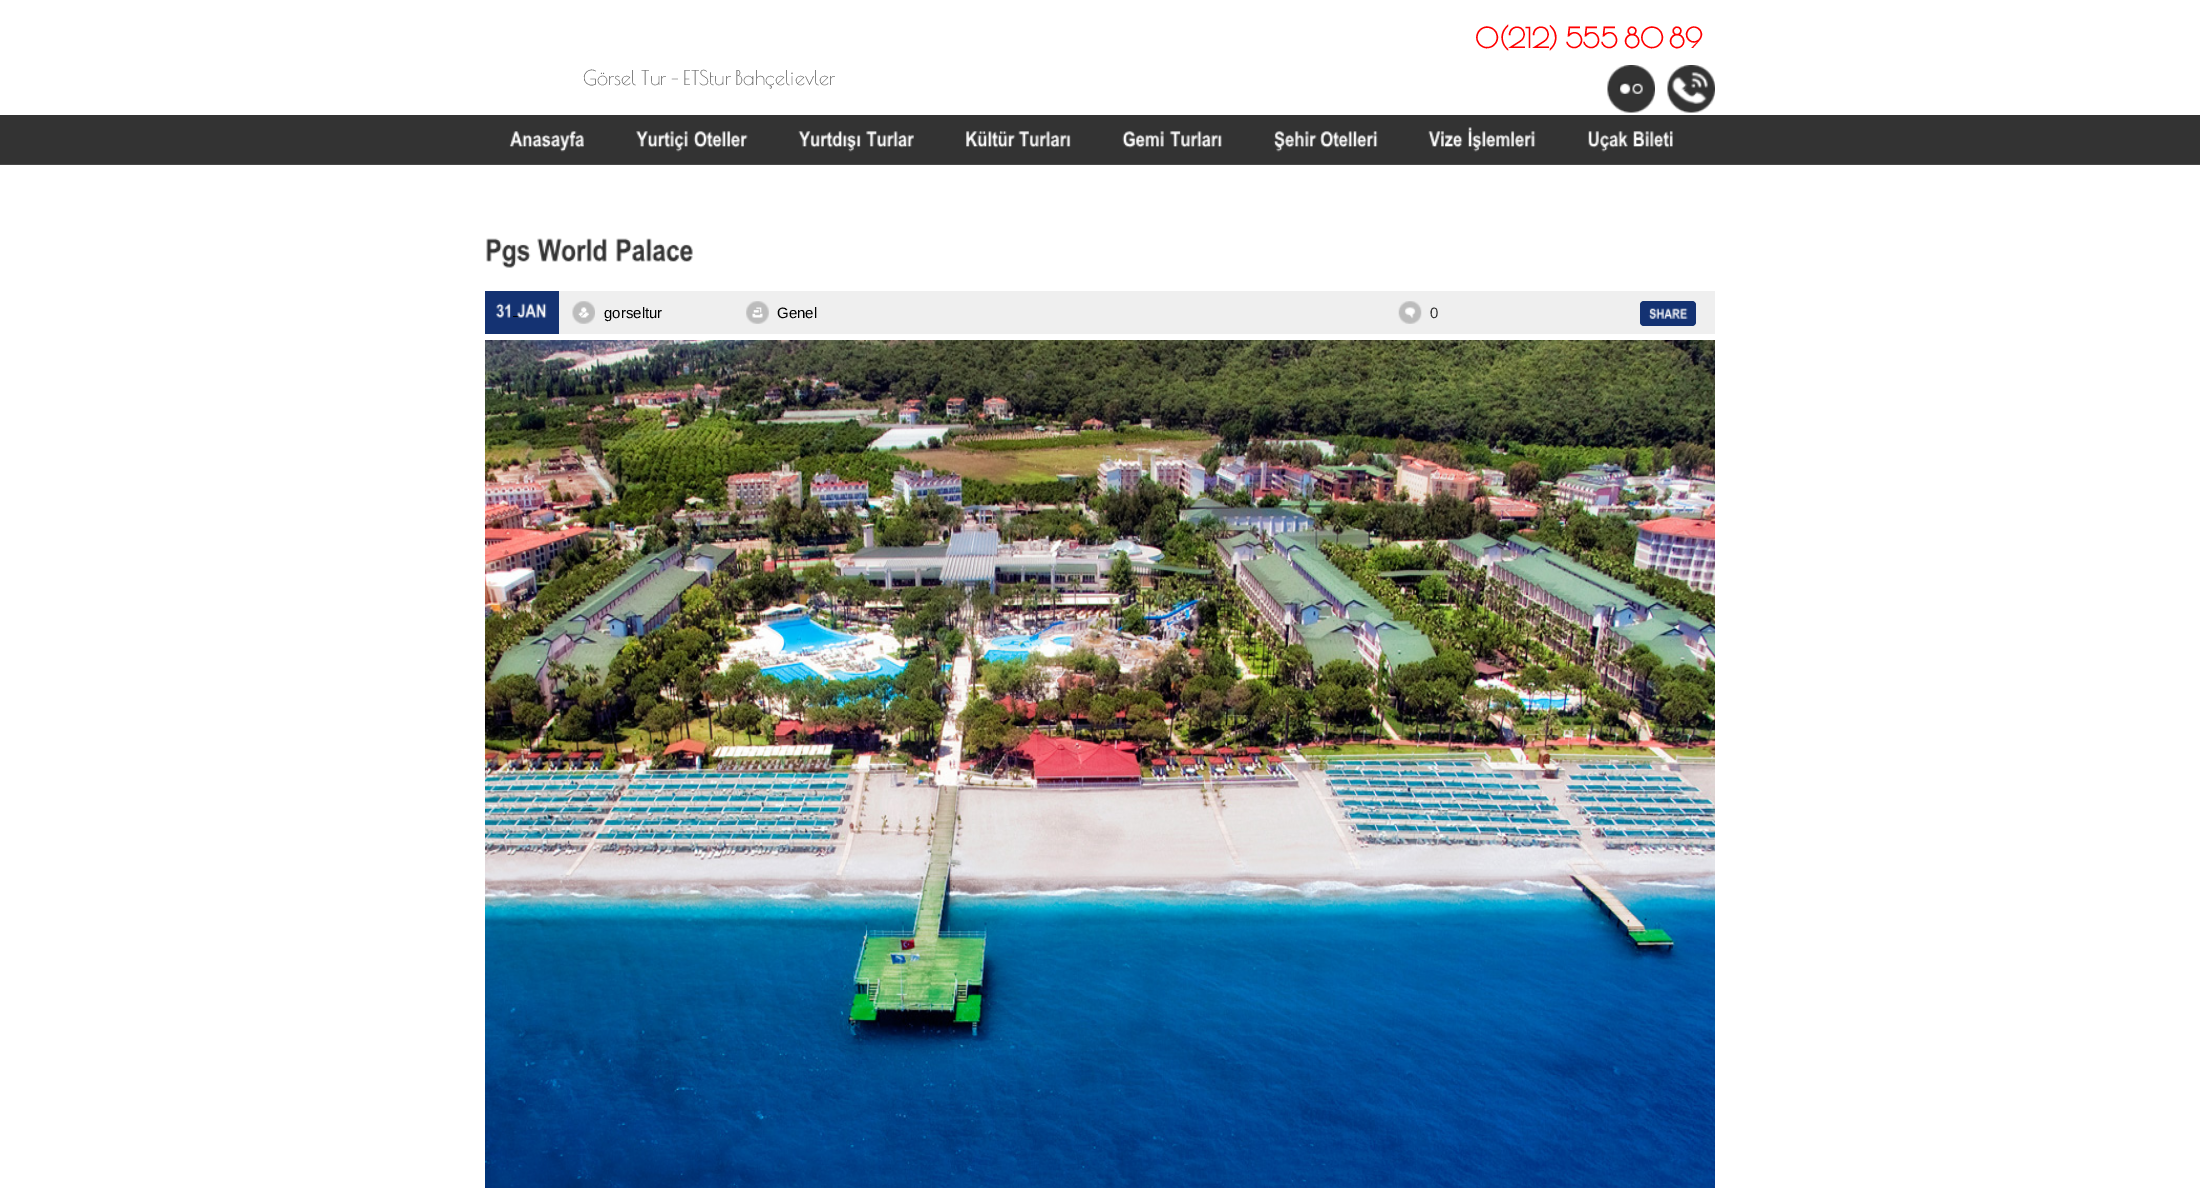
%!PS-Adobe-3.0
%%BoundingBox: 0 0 2200 1188
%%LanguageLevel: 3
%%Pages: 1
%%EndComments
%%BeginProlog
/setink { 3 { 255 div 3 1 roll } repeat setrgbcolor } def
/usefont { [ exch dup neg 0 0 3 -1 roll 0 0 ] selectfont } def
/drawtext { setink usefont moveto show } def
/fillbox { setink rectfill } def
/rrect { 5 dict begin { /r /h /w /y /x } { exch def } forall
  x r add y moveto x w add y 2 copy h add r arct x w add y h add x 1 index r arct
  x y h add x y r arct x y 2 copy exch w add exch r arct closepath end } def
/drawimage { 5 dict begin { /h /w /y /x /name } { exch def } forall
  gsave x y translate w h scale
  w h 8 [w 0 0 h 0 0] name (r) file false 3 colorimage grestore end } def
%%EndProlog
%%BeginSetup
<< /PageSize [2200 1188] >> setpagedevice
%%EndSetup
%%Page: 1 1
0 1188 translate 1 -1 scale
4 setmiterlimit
0 0 2200 1188 255 255 255 fillbox
(0\(212\) 555 80 89) 1475 48 /PoiretOne-Bold 27.5 255 0 0 drawtext
(Görsel Tur - ETStur Bahçelievler) 583 85 /PoiretOne-Regular 20 85 85 85 drawtext
(assets/img1.rgb) 1607 65 48 48 drawimage
(assets/img2.rgb) 1667 65 48 48 drawimage
0 115 2200 49 51 51 51 fillbox
0 164 2200 1 71 71 71 fillbox
(assets/img3.rgb) 509 131 75 21 drawimage
(assets/img4.rgb) 636 131 52 21 drawimage
(assets/img5.rgb) 693 131 55 17 drawimage
(assets/img6.rgb) 798 131 63 21 drawimage
(assets/img7.rgb) 866 131 48 17 drawimage
(assets/img8.rgb) 966 131 50 17 drawimage
(assets/img9.rgb) 1018 131 53 17 drawimage
(assets/img10.rgb) 1122 131 42 17 drawimage
(assets/img11.rgb) 1169 131 53 17 drawimage
(assets/img12.rgb) 1273 131 44 21 drawimage
(assets/img13.rgb) 1320 131 58 17 drawimage
(assets/img14.rgb) 1428 131 35 17 drawimage
(assets/img15.rgb) 1468 127 68 25 drawimage
(assets/img16.rgb) 1588 131 40 21 drawimage
(assets/img17.rgb) 1633 131 40 17 drawimage
(assets/img18.rgb) 486 238 45 30 drawimage
(assets/img19.rgb) 537 238 70 24 drawimage
(assets/img20.rgb) 616 238 77 24 drawimage
559 291 1156 43 239 239 239 fillbox
485 291 74 43 20 50 114 fillbox
(assets/img21.rgb) 496 303 15 15 drawimage
513 316 5 1 0 0 0 fillbox
(assets/img22.rgb) 517 303 30 15 drawimage
(assets/img23.rgb) 572 301 23 23 drawimage
(gorseltur) 604 318 /LiberationSans-Regular 15 0 0 0 drawtext
(assets/img24.rgb) 746 301 23 23 drawimage
(Genel) 777 318 /LiberationSans-Regular 15 0 0 0 drawtext
(assets/img25.rgb) 1398 301 24 23 drawimage
(0) 1430 318 /LiberationSans-Regular 15 51 51 51 drawtext
20 50 114 setink
1640 301 56 25 4 rrect fill
(assets/img26.rgb) 1648 308 40 11 drawimage
(assets/img27.rgb) 485 340 1230 848 drawimage
showpage
%%EOF
